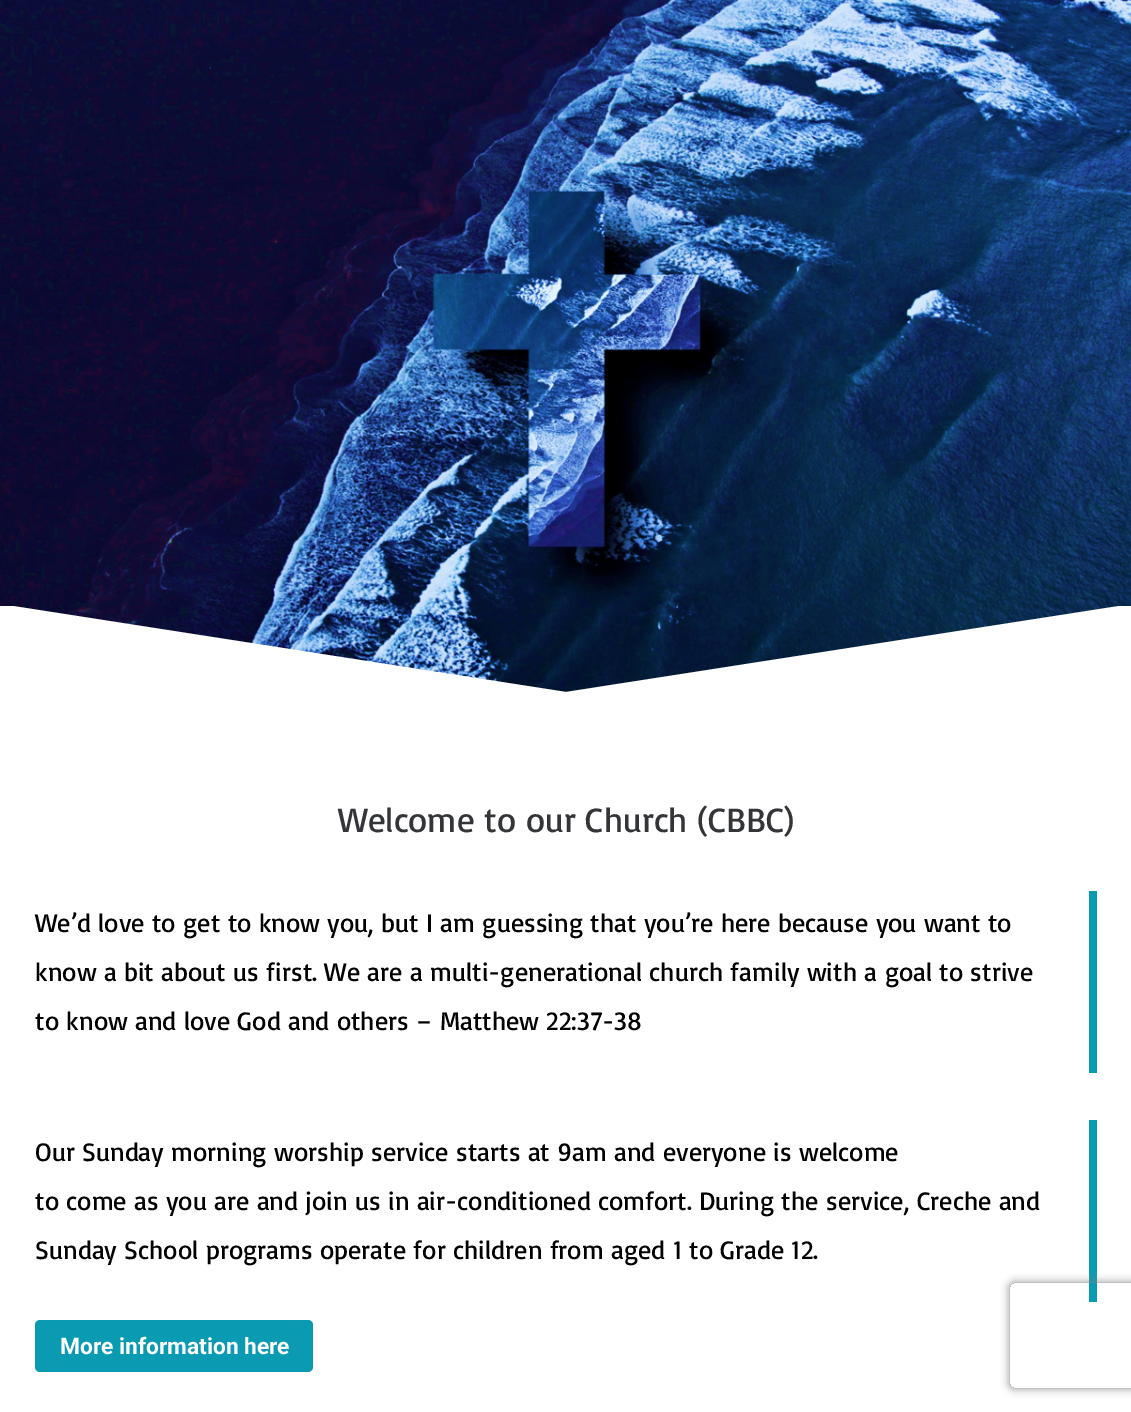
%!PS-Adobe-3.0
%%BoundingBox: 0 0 1131 1412
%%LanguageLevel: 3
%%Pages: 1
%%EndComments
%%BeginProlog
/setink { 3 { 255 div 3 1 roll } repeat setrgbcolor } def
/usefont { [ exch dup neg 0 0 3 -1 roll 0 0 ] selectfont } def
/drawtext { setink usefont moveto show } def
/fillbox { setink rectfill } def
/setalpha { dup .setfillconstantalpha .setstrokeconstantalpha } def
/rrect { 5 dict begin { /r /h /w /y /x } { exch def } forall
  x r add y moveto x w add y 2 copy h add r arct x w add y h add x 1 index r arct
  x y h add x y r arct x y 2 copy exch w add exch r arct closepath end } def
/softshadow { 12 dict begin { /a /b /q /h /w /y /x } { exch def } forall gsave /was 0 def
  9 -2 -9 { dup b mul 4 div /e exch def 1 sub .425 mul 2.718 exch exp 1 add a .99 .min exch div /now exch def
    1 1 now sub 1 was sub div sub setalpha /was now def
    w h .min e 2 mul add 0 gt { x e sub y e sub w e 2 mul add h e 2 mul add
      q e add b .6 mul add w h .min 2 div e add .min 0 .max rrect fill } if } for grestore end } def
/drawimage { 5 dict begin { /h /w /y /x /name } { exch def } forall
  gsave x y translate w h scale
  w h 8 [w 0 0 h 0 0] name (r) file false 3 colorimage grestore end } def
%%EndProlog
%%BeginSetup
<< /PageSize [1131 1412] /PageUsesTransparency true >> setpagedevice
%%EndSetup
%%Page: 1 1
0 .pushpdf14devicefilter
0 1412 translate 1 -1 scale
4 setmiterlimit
0 0 1131 1412 255 255 255 fillbox
(assets/img1.rgb) 0 0 1131 692 drawimage
gsave
0 606 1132 171 rectclip
0 604 moveto 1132 604 lineto closepath 0 779 moveto 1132 779 lineto 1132 692 lineto 0 692 lineto closepath 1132 604 moveto 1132 692 lineto 0 692 lineto 0 604 lineto 566 692 lineto closepath fill
grestore
(Welcome to our Church \(CBBC\)) 338 832 /Basic-Regular 35 51 53 57 drawtext
(We’d love to get to know you, but I am guessing that you’re here because you want to) 35 932 /Basic-Regular 26.25 0 0 0 drawtext
(know a bit about us first. We are a multi-generational church family with a goal to strive) 35 981 /Basic-Regular 26.25 0 0 0 drawtext
(to know and love God and others – Matthew 22:37-38) 35 1030 /Basic-Regular 26.25 0 0 0 drawtext
1089 891 8 182 10 155 178 fillbox
(Our Sunday morning worship service starts at 9am and everyone is welcome) 35 1161 /Basic-Regular 26.25 0 0 0 drawtext
(to come as you are and join us in air-conditioned comfort. During the service, Creche and) 35 1210 /Basic-Regular 26.25 0 0 0 drawtext
(Sunday School programs operate for children from aged 1 to Grade 12.) 35 1259 /Basic-Regular 26.25 0 0 0 drawtext
1089 1120 8 182 10 155 178 fillbox
35 1320 278 52 5 rrect fill
(More information here) 60 1354 /Roboto-Bold 22.75 255 255 255 drawtext
gsave
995 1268 moveto 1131 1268 lineto 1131 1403 lineto 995 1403 lineto closepath 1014 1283 moveto 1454 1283 lineto 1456 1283 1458 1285 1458 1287 curveto 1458 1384 lineto 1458 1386 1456 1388 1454 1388 curveto 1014 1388 lineto 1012 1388 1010 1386 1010 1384 curveto 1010 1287 lineto 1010 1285 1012 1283 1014 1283 curveto closepath eoclip newpath
128 128 128 setink
1010 1283 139 105 4 4.5 1 softshadow
grestore
.poppdf14devicefilter showpage
%%EOF
